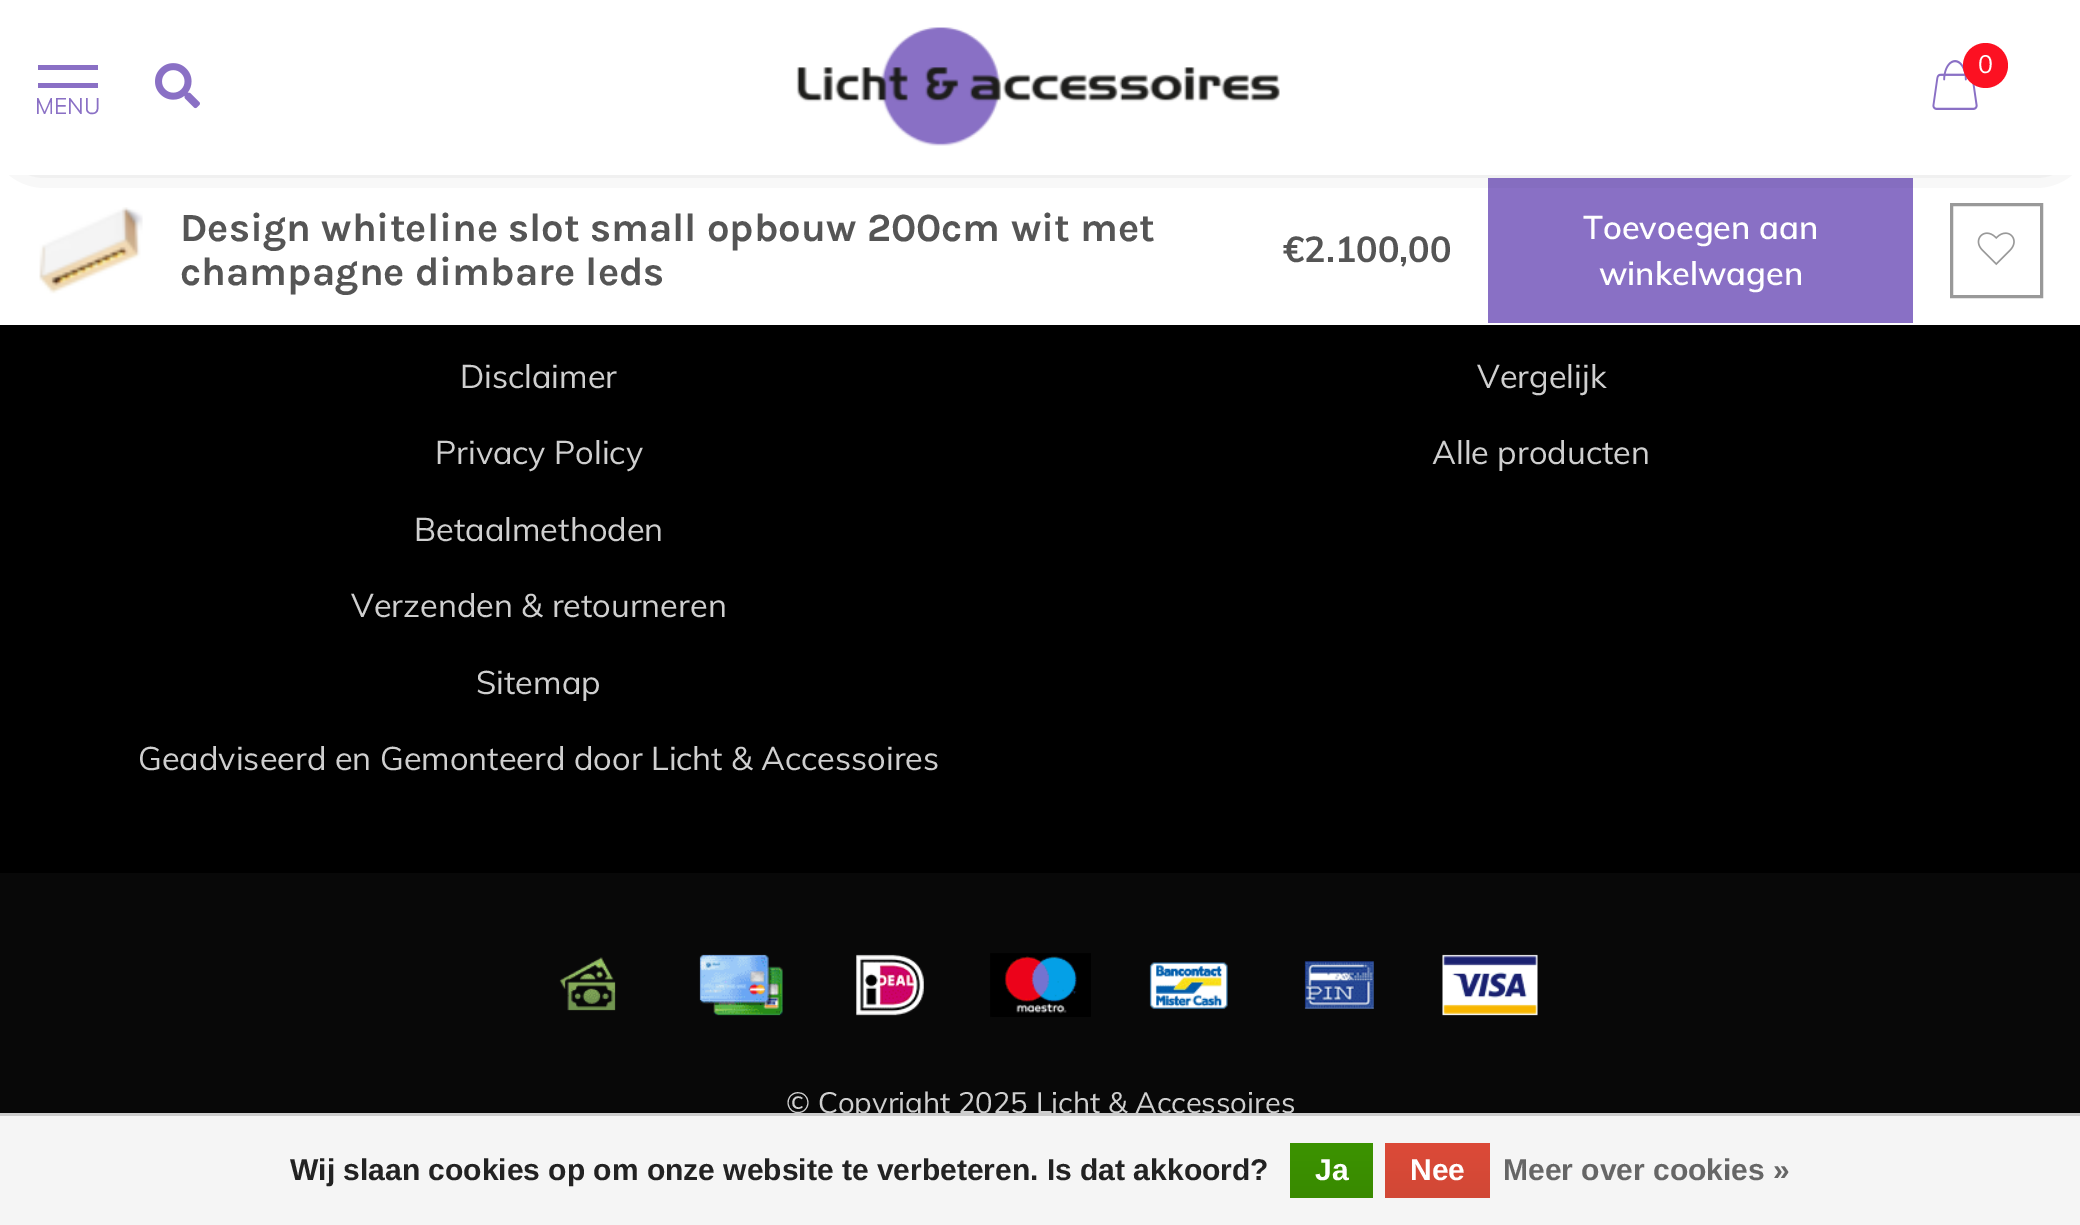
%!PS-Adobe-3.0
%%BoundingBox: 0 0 2080 1225
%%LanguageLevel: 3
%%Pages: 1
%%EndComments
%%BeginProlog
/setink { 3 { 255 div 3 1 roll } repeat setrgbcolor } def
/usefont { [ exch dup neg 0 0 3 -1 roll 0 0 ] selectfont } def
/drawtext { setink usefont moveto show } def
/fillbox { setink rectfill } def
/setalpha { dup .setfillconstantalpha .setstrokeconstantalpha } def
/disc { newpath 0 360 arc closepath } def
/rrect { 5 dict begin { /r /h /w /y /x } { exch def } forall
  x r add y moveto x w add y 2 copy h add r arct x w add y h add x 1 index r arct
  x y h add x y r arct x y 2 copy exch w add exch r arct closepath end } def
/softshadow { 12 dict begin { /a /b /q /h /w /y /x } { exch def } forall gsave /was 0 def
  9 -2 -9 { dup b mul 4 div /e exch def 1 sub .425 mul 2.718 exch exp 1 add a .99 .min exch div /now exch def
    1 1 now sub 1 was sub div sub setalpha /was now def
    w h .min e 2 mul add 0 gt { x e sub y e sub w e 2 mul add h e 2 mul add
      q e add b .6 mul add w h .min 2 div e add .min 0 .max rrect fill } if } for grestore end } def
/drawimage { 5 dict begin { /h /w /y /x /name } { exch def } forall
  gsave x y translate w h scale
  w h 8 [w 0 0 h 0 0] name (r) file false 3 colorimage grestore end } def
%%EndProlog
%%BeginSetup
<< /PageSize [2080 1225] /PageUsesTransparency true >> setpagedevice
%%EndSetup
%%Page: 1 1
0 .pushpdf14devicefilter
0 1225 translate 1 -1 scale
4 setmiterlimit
0 0 2080 1225 0 0 0 fillbox
0 175 2080 150 255 255 255 fillbox
1488 178 425 145 137 112 197 fillbox
153 153 153 setink
3 setlinewidth
1951.5 204.5 90 92 rectstroke
0 0 0 setink
33 33 2015 110 0 20 0.8 softshadow
0 0 2080 175 255 255 255 fillbox
(assets/img1.rgb) 796 27 484 119 drawimage
(assets/img2.rgb) 1932 60 46 50 drawimage
252 17 34 setink
1985.5 65.5 22.5 disc fill
(0) 1978 73 /Muli-Regular 25 255 255 255 drawtext
38 65 60 5 138 112 197 fillbox
38 83 60 5 138 112 197 fillbox
(MENU) 35 114 /Muli-Regular 22.5 138 112 197 drawtext
(assets/img3.rgb) 155 63 45 46 drawimage
(assets/img4.rgb) 39 207 104 87 drawimage
(Design whiteline slot small opbouw 200cm wit met) 180 241 /Karla-Bold 40 85 85 85 drawtext
(champagne dimbare leds) 180 285 /Karla-Bold 40 85 85 85 drawtext
(€2.100,00) 1283 262 /Muli-Bold 35.75 85 85 85 drawtext
(Toevoegen aan) 1583 239 /Muli-SemiBold 32.5 255 255 255 drawtext
(winkelwagen) 1599 285 /Muli-SemiBold 32.5 255 255 255 drawtext
(assets/img5.rgb) 1977 232 38 34 drawimage
(Disclaimer) 460 388 /Muli-Regular 32.5 207 207 207 drawtext
(Privacy Policy) 435 464 /Muli-Regular 32.5 207 207 207 drawtext
(Betaalmethoden) 414 541 /Muli-Regular 32.5 207 207 207 drawtext
(Verzenden & retourneren) 351 617 /Muli-Regular 32.5 207 207 207 drawtext
(Sitemap) 476 694 /Muli-Regular 32.5 207 207 207 drawtext
(Geadviseerd en Gemonteerd door Licht & Accessoires) 138 770 /Muli-Regular 32.5 207 207 207 drawtext
(Vergelijk) 1477 388 /Muli-Regular 32.5 207 207 207 drawtext
(Alle producten) 1432 464 /Muli-Regular 32.5 207 207 207 drawtext
0 873 2080 240 8 8 8 fillbox
(assets/img6.rgb) 559 957 57 54 drawimage
(assets/img7.rgb) 699 954 84 62 drawimage
(assets/img8.rgb) 856 954 68 62 drawimage
(assets/img9.rgb) 990 953 101 64 drawimage
(assets/img10.rgb) 1149 962 79 47 drawimage
(assets/img11.rgb) 1304 961 70 48 drawimage
(assets/img12.rgb) 1442 954 96 62 drawimage
(© Copyright 2025 Licht & Accessoires) 786 1113 /Muli-Regular 29.25 207 207 207 drawtext
0 1116 2080 109 245 245 245 fillbox
0 1113 2080 3 204 204 204 fillbox
(Wij slaan cookies op om onze website te verbeteren. Is dat akkoord?) 290 1180 /LiberationSans-Bold 30 34 34 34 drawtext
gsave 1290 1143 moveto 1373 1143 lineto 1373 1198 lineto 1290 1198 lineto closepath clip newpath
<< /ShadingType 2 /ColorSpace /DeviceRGB /Coords [1331 1143 1331 1198] /Extend [true true] /Function << /FunctionType 2 /Domain [0 1] /C0 [0.235 0.576 0] /C1 [0.224 0.541 0] /N 1 >> >> shfill grestore
(Ja) 1315 1180 /LiberationSans-Bold 30 255 255 255 drawtext
gsave 1385 1143 moveto 1490 1143 lineto 1490 1198 lineto 1385 1198 lineto closepath clip newpath
<< /ShadingType 2 /ColorSpace /DeviceRGB /Coords [1438 1143 1438 1198] /Extend [true true] /Function << /FunctionType 2 /Domain [0 1] /C0 [0.863 0.29 0.22] /C1 [0.82 0.282 0.212] /N 1 >> >> shfill grestore
(Nee) 1410 1180 /LiberationSans-Bold 30 255 255 255 drawtext
(Meer over cookies ») 1503 1180 /LiberationSans-Bold 30 102 102 102 drawtext
.poppdf14devicefilter showpage
%%EOF
